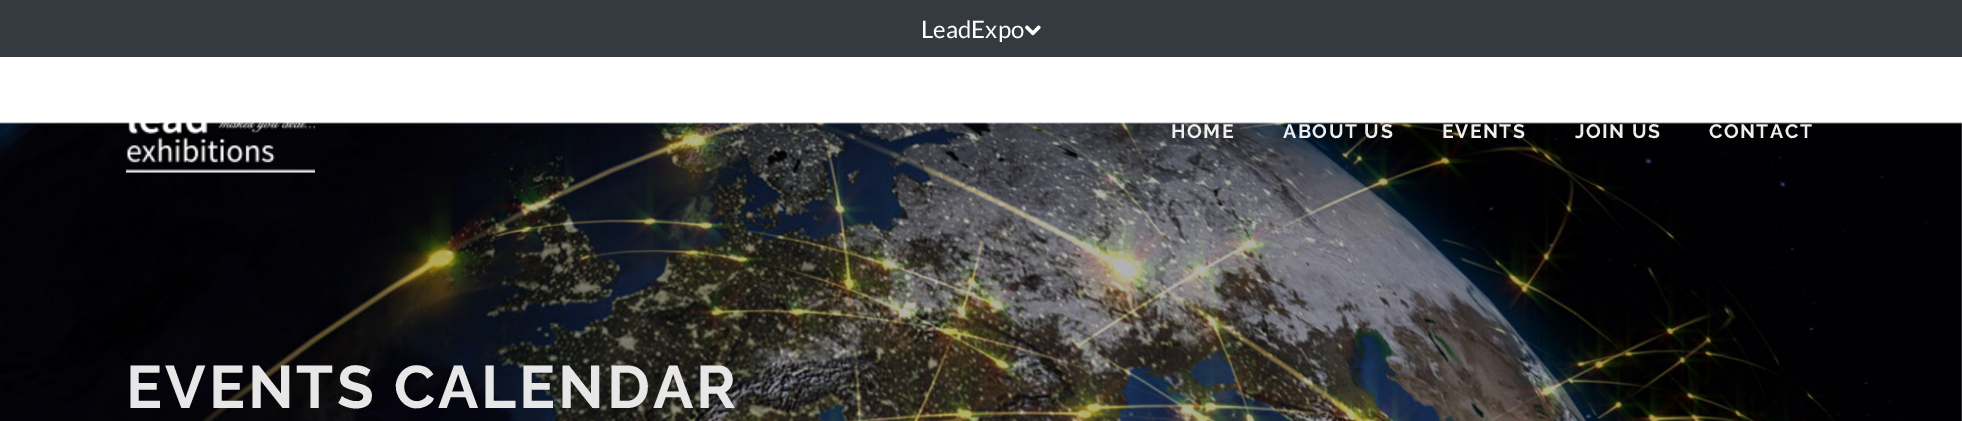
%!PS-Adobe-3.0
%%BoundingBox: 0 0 1962 421
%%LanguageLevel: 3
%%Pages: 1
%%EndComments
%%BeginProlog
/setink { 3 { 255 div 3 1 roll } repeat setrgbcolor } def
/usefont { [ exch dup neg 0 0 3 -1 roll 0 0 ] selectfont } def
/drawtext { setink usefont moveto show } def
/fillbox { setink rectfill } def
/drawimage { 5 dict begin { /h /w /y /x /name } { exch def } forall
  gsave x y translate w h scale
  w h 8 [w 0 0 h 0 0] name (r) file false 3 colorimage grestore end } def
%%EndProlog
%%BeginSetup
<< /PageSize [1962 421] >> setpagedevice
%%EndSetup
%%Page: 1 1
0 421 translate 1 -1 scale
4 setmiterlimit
0 0 1962 421 255 255 255 fillbox
0 0 1962 57 52 58 64 fillbox
(LeadExpo) 921 38 /Lato-Regular 24 255 255 255 drawtext
(assets/img1.rgb) 1025 25 16 11 drawimage
(assets/img3.rgb) 0 122 1962 299 drawimage
(assets/img2.rgb) 126 122 189 51 drawimage
/Raleway-Bold 19.5 usefont
238 238 238 setink
1171 138 moveto 1.5 0 (HOME) ashow
1283 138 moveto 1.5 0 (ABOUT US) ashow
1442 138 moveto 1.5 0 (EVENTS) ashow
1575 138 moveto 1.5 0 (JOIN US) ashow
1709 138 moveto 1.5 0 (CONTACT) ashow
/Raleway-Bold 60 usefont
231 231 232 setink
126 408 moveto 3 0 (EVENTS CALENDAR) ashow
showpage
%%EOF
